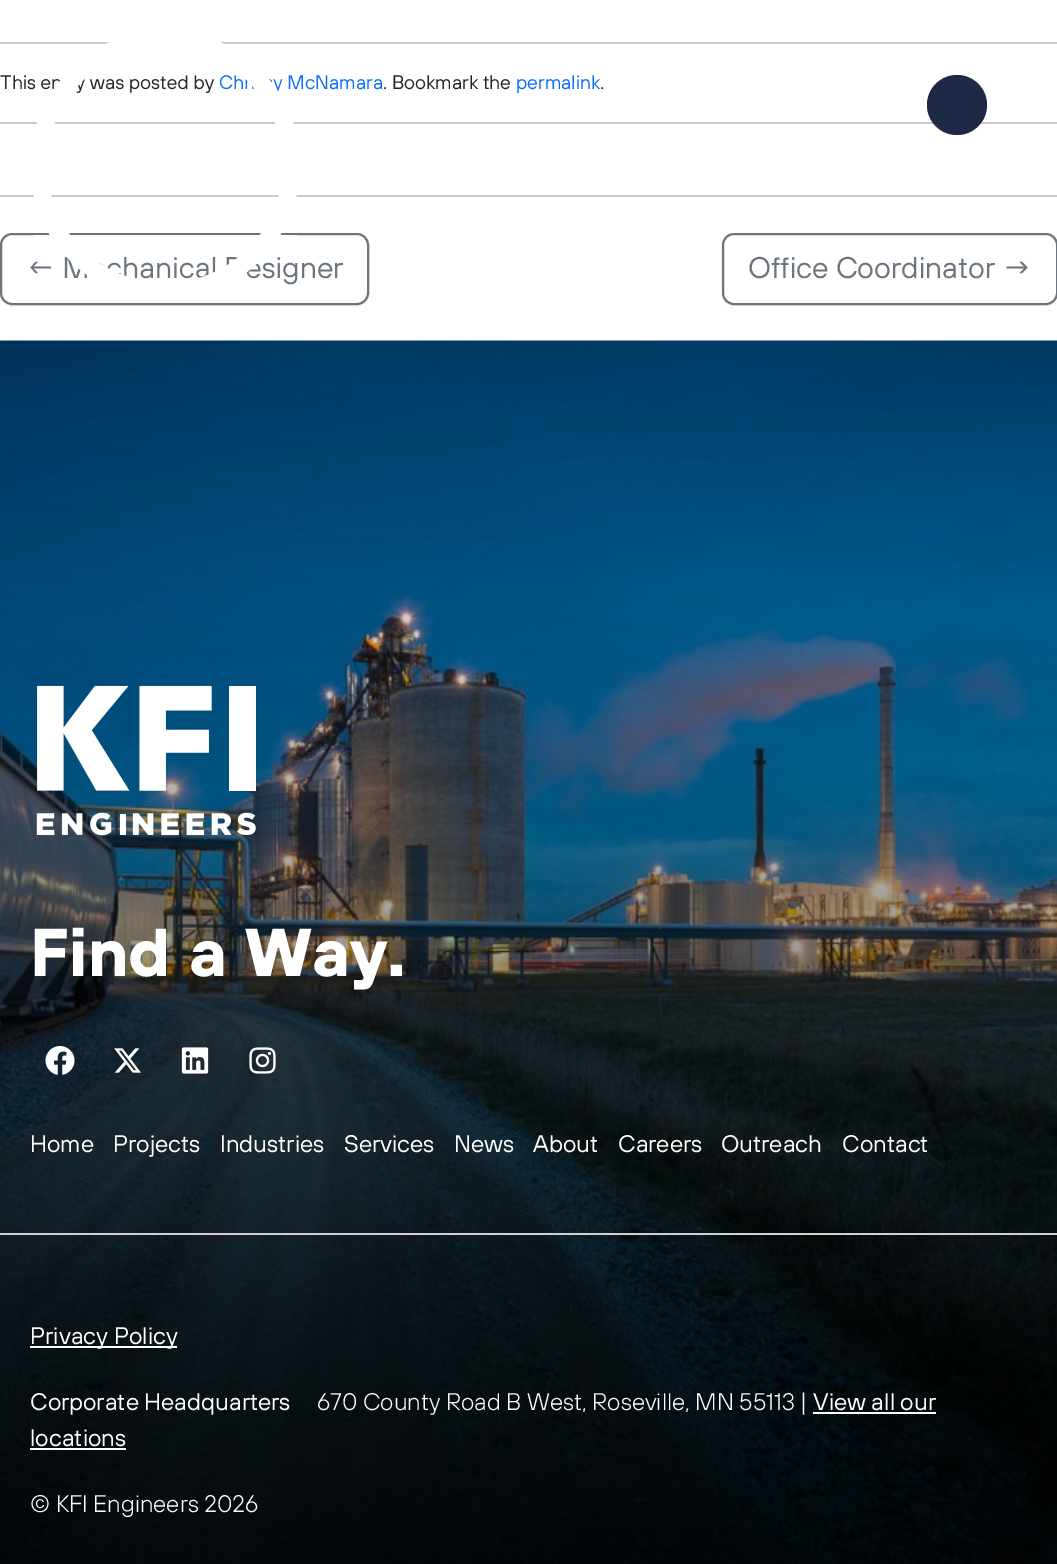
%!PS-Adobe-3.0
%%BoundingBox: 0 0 1057 1564
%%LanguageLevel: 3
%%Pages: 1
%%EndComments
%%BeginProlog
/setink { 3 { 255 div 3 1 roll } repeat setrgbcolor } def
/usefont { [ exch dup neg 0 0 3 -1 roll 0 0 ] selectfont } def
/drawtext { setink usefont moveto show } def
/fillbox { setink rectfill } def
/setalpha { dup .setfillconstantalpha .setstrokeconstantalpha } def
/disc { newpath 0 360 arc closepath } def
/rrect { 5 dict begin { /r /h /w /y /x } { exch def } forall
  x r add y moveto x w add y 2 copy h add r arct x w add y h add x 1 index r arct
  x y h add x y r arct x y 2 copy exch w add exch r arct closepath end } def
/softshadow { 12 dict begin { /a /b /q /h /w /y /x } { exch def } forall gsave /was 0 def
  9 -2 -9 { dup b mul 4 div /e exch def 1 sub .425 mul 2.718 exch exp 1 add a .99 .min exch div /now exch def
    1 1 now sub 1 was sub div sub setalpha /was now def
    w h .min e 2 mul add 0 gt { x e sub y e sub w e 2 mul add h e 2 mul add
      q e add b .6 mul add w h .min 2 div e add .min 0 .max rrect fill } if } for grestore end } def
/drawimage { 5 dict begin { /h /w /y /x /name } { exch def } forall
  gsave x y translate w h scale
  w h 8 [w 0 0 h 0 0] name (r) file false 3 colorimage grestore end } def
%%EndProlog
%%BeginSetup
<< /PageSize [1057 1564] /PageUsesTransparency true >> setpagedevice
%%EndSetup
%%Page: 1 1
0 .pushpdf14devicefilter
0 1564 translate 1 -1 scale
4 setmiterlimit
0 0 1057 1564 255 255 255 fillbox
0 42 1057 2 200 201 202 fillbox
(This en) 0 89 /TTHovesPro-Regular 19.5 33 37 41 drawtext
(y was posted by) 75 89 /TTHovesPro-Regular 19.5 33 37 41 drawtext
(Ch) 219 89 /TTHovesPro-Regular 19.5 13 110 253 drawtext
(McNamara) 287 89 /TTHovesPro-Regular 19.5 13 110 253 drawtext
0 122 1057 2 200 201 202 fillbox
0 195 1057 2 200 201 202 fillbox
gsave
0 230 moveto 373 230 lineto 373 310 lineto 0 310 lineto closepath 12 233 moveto 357 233 lineto 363.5 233 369 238.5 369 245 curveto 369 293 lineto 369 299.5 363.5 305 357 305 curveto 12 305 lineto 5.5 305 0 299.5 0 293 curveto 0 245 lineto 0 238.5 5.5 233 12 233 curveto closepath eoclip newpath
0 0 0 setink
0 234 369 72 12 1 0.07 softshadow
grestore
108 117 125 setink
2 setlinewidth
1 234 367 70 11 rrect stroke
(←) 26 278 /TTHovesPro-Regular 30 108 117 125 drawtext
(hanic) 122 278 /TTHovesPro-Regular 30 108 117 125 drawtext
(signer) 262 278 /TTHovesPro-Regular 30 108 117 125 drawtext
(assets/img1.rgb) 33 42 264 237 drawimage
30 41 69 setink
957 105 30 disc fill
(. Bookmark the) 383 89 /TTHovesPro-Regular 19.5 33 37 41 drawtext
(permalink) 516 89 /TTHovesPro-Regular 19.5 13 110 253 drawtext
(.) 600 89 /TTHovesPro-Regular 19.5 33 37 41 drawtext
gsave
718 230 moveto 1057 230 lineto 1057 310 lineto 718 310 lineto closepath 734 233 moveto 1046 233 lineto 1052.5 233 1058 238.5 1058 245 curveto 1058 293 lineto 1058 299.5 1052.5 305 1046 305 curveto 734 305 lineto 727.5 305 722 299.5 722 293 curveto 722 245 lineto 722 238.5 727.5 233 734 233 curveto closepath eoclip newpath
0 0 0 setink
722 234 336 72 12 1 0.07 softshadow
grestore
108 117 125 setink
723 234 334 70 11 rrect stroke
(Office Coordinator →) 748 278 /TTHovesPro-Regular 30 108 117 125 drawtext
(assets/img2.rgb) 0 340 1057 1224 drawimage
(assets/img3.rgb) 36 685 220 151 drawimage
(Find a Way.) 30 976 /TTHovesPro-Bold 67.5 255 255 255 drawtext
(assets/img4.rgb) 45 1046 30 29 drawimage
(assets/img5.rgb) 114 1048 27 25 drawimage
(assets/img6.rgb) 181 1047 28 27 drawimage
(assets/img7.rgb) 249 1047 27 27 drawimage
(Home) 30 1152 /TTHovesPro-Regular 24 255 255 255 drawtext
(Projects) 113 1152 /TTHovesPro-Regular 24 255 255 255 drawtext
(Industries) 220 1152 /TTHovesPro-Regular 24 255 255 255 drawtext
(Services) 344 1152 /TTHovesPro-Regular 24 255 255 255 drawtext
(News) 454 1152 /TTHovesPro-Regular 24 255 255 255 drawtext
(About) 533 1152 /TTHovesPro-Regular 24 255 255 255 drawtext
(Careers) 618 1152 /TTHovesPro-Regular 24 255 255 255 drawtext
(Outreach) 721 1152 /TTHovesPro-Regular 24 255 255 255 drawtext
(Contact) 842 1152 /TTHovesPro-Regular 24 255 255 255 drawtext
0 1233 1057 2 211 208 208 fillbox
30 1346 147 2 255 255 255 fillbox
(Privacy Policy) 30 1344 /TTHovesPro-Regular 24 255 255 255 drawtext
(Corporate Headquarters) 30 1410 /TTHovesPro-Regular 24 255 255 255 drawtext
(670 County Road B West, Roseville, MN 55113 |) 317 1410 /TTHovesPro-Light 24 255 255 255 drawtext
(View all our) 813 1410 /TTHovesPro-Regular 24 255 255 255 drawtext
813 1412 123 2 255 255 255 fillbox
(locations) 30 1446 /TTHovesPro-Regular 24 255 255 255 drawtext
30 1448 96 2 255 255 255 fillbox
(© KFI Engineers 2026) 30 1512 /TTHovesPro-Light 24 255 255 255 drawtext
.poppdf14devicefilter showpage
%%EOF
